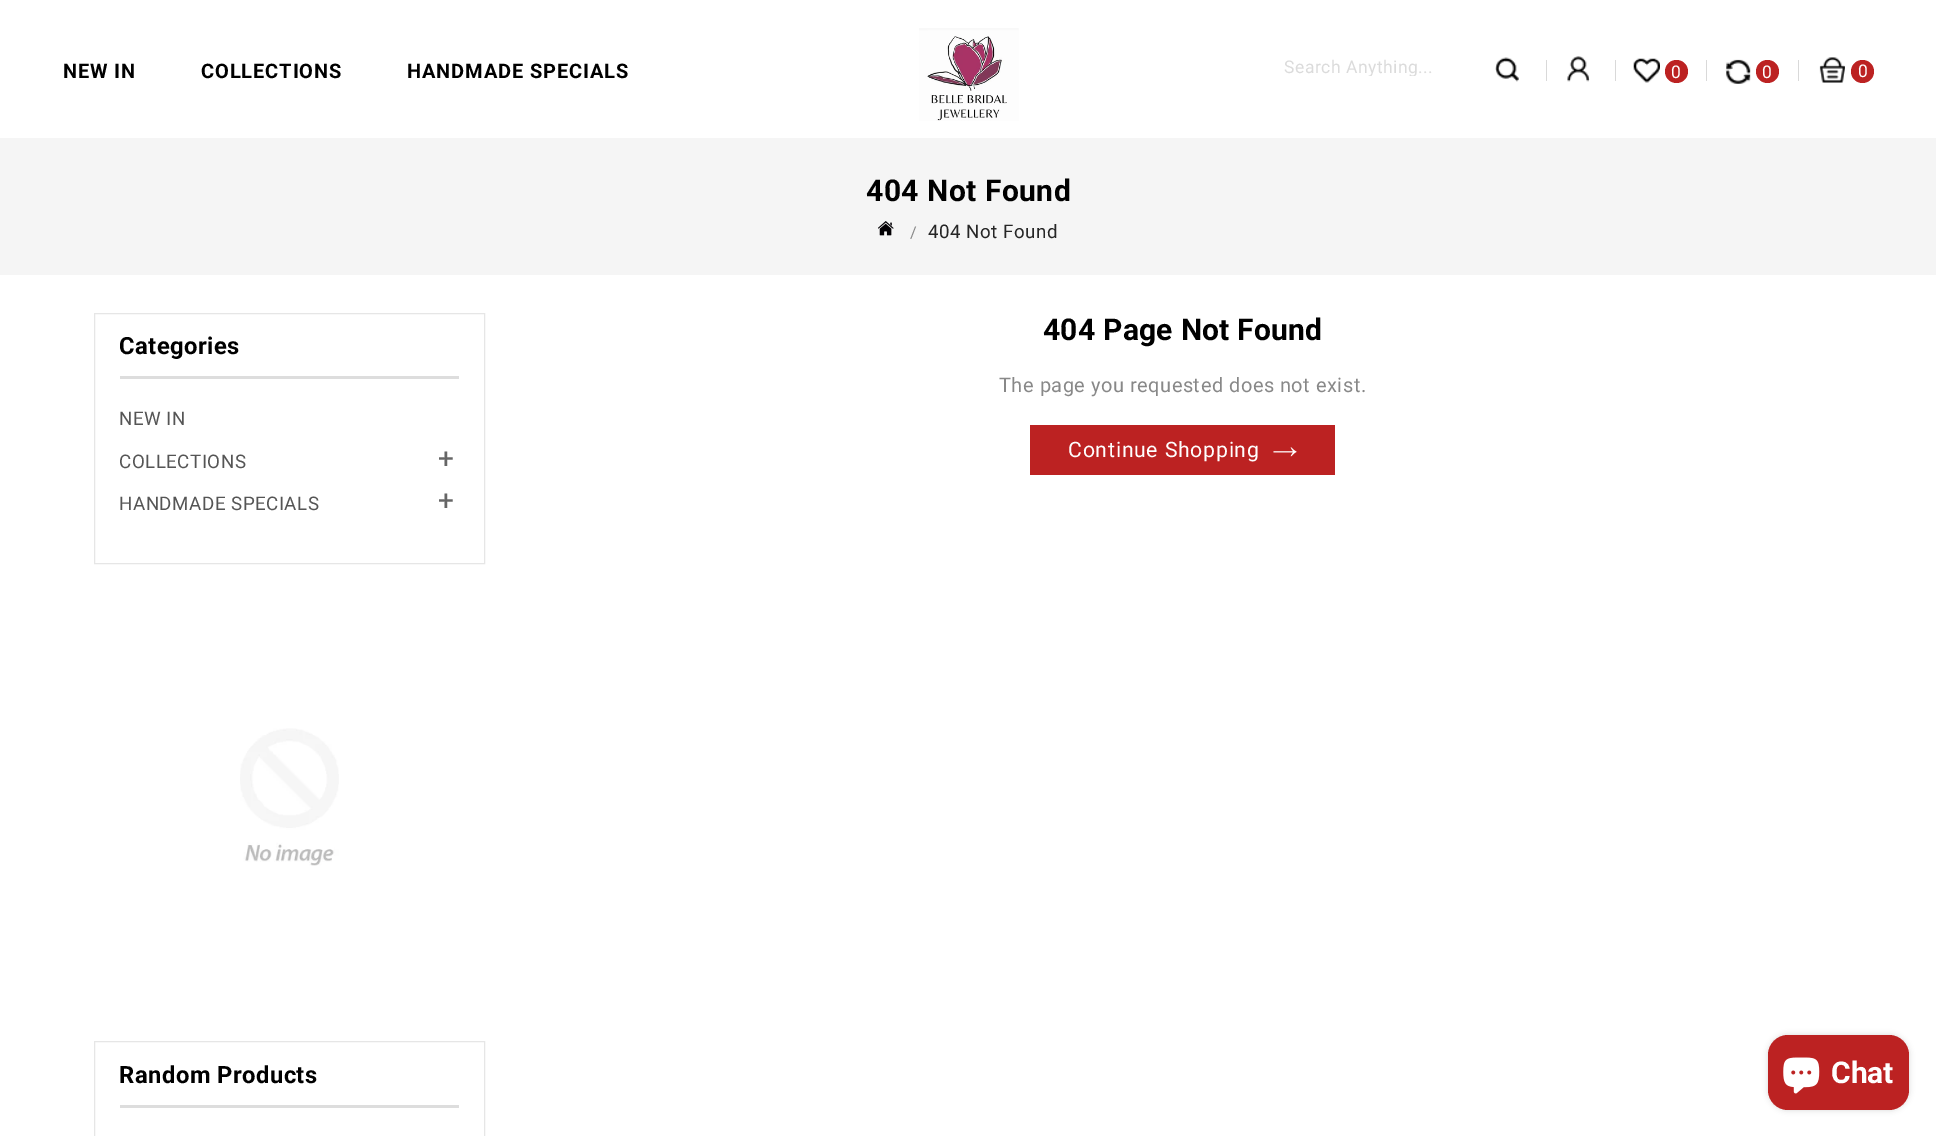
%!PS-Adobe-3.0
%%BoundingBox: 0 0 1936 1136
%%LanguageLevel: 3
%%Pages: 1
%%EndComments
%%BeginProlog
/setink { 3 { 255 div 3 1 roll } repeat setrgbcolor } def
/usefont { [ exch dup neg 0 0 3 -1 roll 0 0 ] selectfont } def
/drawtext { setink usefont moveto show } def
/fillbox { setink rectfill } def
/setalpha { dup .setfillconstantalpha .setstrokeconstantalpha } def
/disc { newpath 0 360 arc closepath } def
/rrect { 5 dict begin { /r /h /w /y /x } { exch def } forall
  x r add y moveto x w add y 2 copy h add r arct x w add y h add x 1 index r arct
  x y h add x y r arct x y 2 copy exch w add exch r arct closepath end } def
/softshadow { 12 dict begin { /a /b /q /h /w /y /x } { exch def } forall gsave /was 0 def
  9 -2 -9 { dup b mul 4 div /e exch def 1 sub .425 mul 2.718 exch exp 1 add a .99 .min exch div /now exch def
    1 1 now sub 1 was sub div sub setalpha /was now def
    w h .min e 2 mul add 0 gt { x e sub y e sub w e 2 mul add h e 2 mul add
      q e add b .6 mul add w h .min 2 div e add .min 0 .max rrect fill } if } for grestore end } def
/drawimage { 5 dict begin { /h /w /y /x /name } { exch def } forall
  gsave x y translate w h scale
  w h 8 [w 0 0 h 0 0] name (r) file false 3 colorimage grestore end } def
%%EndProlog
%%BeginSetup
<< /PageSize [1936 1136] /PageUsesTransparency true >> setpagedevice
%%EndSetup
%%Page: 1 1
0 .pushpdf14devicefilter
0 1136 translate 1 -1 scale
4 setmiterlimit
0 0 1936 1136 255 255 255 fillbox
/Roboto-Bold 20 usefont
0 0 0 setink
63 78 moveto 0.9 0 (NEW IN) ashow
201 78 moveto 0.9 0 (COLLECTIONS) ashow
407 78 moveto 0.9 0 (HANDMADE SPECIALS) ashow
(assets/img1.rgb) 919 28 100 93 drawimage
gsave
1284 56 182 20 rectclip
/Roboto-Regular 17.5 usefont
219 219 219 setink
1284 73 moveto 0.5 0 (Search Anything...) ashow
grestore
(assets/img2.rgb) 1495 57 24 25 drawimage
1546 60 1 21 217 217 217 fillbox
(assets/img3.rgb) 1567 56 23 26 drawimage
1615 60 1 21 217 217 217 fillbox
(assets/img4.rgb) 1633 58 27 25 drawimage
188 34 34 setink
1676.5 71.5 11.5 disc fill
/Roboto-Regular 17.5 usefont
255 255 255 setink
1671 78 moveto 0.5 0 (0) ashow
1706 60 1 21 217 217 217 fillbox
(assets/img5.rgb) 1725 59 26 25 drawimage
188 34 34 setink
1767.5 71.5 11.5 disc fill
255 255 255 setink
1762 78 moveto 0.5 0 (0) ashow
1798 60 1 21 217 217 217 fillbox
(assets/img6.rgb) 1819 57 26 26 drawimage
188 34 34 setink
1862.5 71.5 11.5 disc fill
(0) 1858 77 /Roboto-Regular 17.5 255 255 255 drawtext
0 138 1936 137 245 245 245 fillbox
/Roboto-Bold 30 usefont
0 0 0 setink
866 201 moveto 0.5 0 (404 Not Found) ashow
(assets/img7.rgb) 878 221 16 15 drawimage
(/) 910 238 /Roboto-Regular 16 136 136 136 drawtext
/Roboto-Regular 18.75 usefont
38 38 38 setink
928 238 moveto 0.5 0 (404 Not Found) ashow
230 230 230 setink
94.5 313.5 390 250 rectstroke
120 376 339 3 221 221 221 fillbox
/Roboto-Bold 23.75 usefont
0 0 0 setink
119 354 moveto 0.5 0 (Categories) ashow
/Roboto-Regular 18.75 usefont
85 85 85 setink
119 425 moveto 0.5 0 (NEW IN) ashow
119 468 moveto 0.5 0 (COLLECTIONS) ashow
/Roboto-Regular 28 usefont
102 102 102 setink
438 468 moveto 0.5 0 (+) ashow
/Roboto-Regular 18.75 usefont
85 85 85 setink
119 510 moveto 0.5 0 (HANDMADE SPECIALS) ashow
/Roboto-Regular 28 usefont
102 102 102 setink
438 510 moveto 0.5 0 (+) ashow
(assets/img8.rgb) 240 728 99 138 drawimage
230 230 230 setink
94.5 1041.5 390 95 rectstroke
120 1105 339 3 221 221 221 fillbox
/Roboto-Bold 23.75 usefont
0 0 0 setink
119 1083 moveto 0.5 0 (Random Products) ashow
/Roboto-Bold 30 usefont
1043 340 moveto 0.25 0 (404 Page Not Found) ashow
/Roboto-Regular 20 usefont
136 136 136 setink
999 392 moveto 0.5 0 (The page you requested does not exist.) ashow
1030 425 305 50 188 34 34 fillbox
/Roboto-Regular 21.25 usefont
255 255 255 setink
1068 457 moveto 0.75 0 (Continue Shopping) ashow
(assets/img9.rgb) 1273 447 24 10 drawimage
0 0 0 setink
1768 1035 141 75 20 3 0.15 softshadow
188 34 34 setink
1768 1035 141 75 20 rrect fill
(assets/img10.rgb) 1783 1057 37 37 drawimage
(Chat) 1831 1083 /Roboto-Bold 30 255 255 255 drawtext
.poppdf14devicefilter showpage
%%EOF
